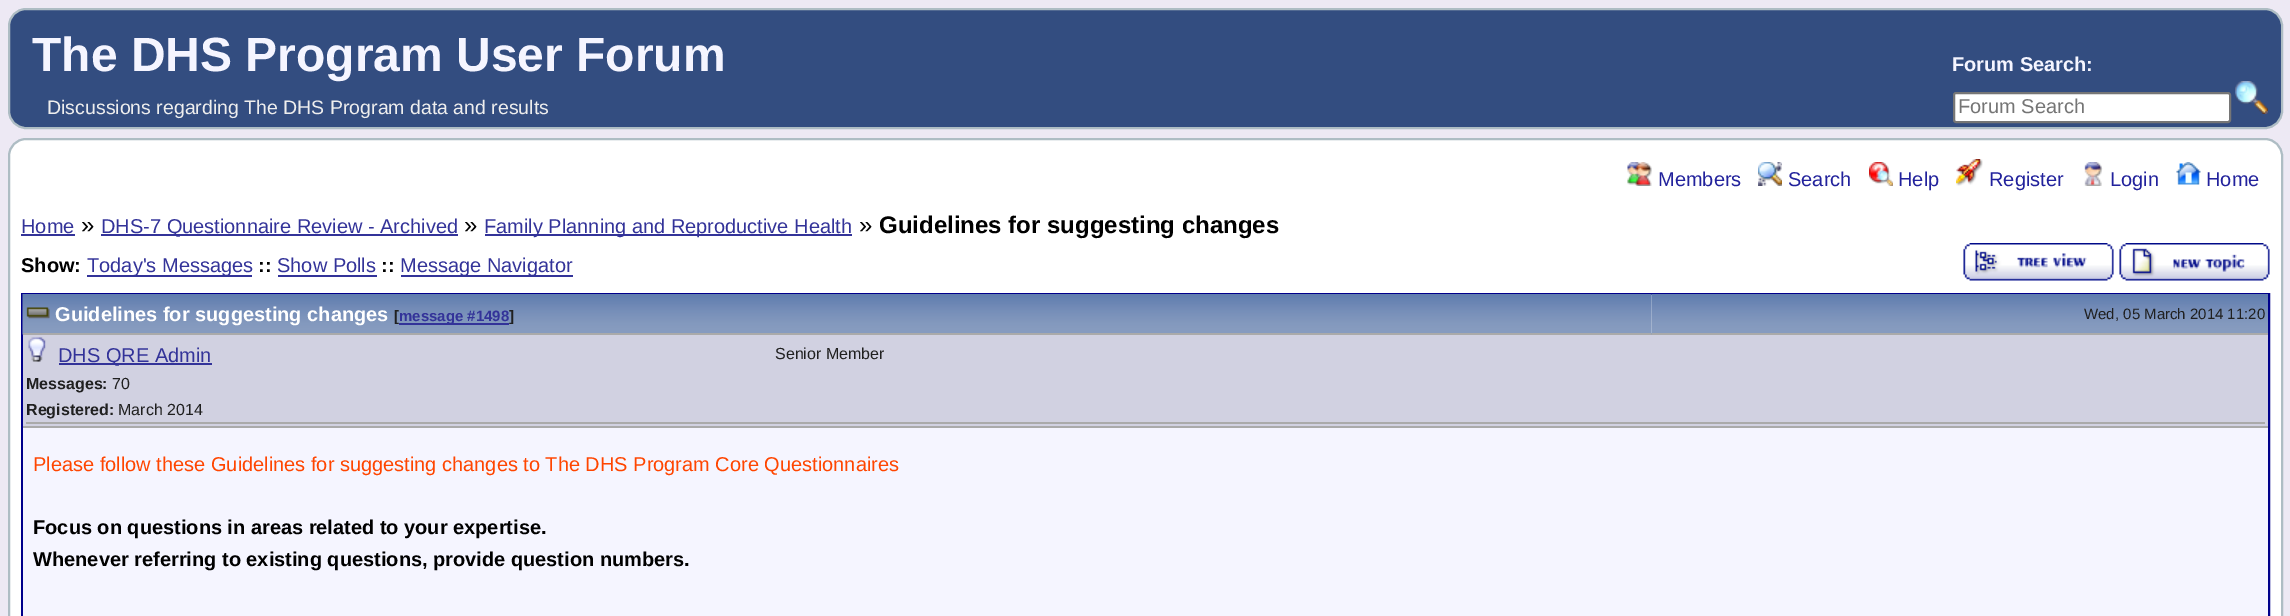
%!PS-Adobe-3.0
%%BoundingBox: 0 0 2290 616
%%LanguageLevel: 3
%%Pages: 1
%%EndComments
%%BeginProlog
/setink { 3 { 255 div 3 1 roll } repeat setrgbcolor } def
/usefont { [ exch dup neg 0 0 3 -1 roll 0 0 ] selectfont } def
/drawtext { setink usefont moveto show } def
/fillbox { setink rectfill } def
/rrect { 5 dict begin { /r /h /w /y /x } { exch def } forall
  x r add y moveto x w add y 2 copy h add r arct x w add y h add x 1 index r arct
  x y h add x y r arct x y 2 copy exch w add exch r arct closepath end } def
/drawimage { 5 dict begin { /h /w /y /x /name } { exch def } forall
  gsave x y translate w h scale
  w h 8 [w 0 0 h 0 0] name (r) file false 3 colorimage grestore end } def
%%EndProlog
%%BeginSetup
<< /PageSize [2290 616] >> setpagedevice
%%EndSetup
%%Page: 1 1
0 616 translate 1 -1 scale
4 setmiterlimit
0 0 2290 616 237 233 244 fillbox
51 77 128 setink
9 9 2273 119 17 rrect gsave fill grestore
174 189 196 setink
2 setlinewidth
stroke
(The DHS Program User Forum) 32 71 /LiberationSans-Bold 48 245 245 255 drawtext
(Forum Search:) 1952 71 /LiberationSans-Bold 20 245 245 255 drawtext
255 255 255 setink
1954 93 276 29 2 rrect gsave fill grestore
118 118 118 setink
stroke
(Forum Search) 1958 113 /LiberationSans-Regular 20 117 117 117 drawtext
(assets/img1.rgb) 2235 81 33 33 drawimage
(Discussions regarding The DHS Program data and results) 47 114 /LiberationSans-Regular 19.5 238 238 238 drawtext
255 255 255 setink
9 139 2273 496 17 rrect gsave fill grestore
174 189 196 setink
stroke
(assets/img2.rgb) 1627 162 25 24 drawimage
(Members) 1658 186 /LiberationSans-Regular 20 34 34 156 drawtext
(assets/img3.rgb) 1758 162 24 24 drawimage
(Search) 1788 186 /LiberationSans-Regular 20 34 34 156 drawtext
(assets/img4.rgb) 1869 162 24 24 drawimage
(Help) 1898 186 /LiberationSans-Regular 20 34 34 156 drawtext
(assets/img5.rgb) 1956 159 27 27 drawimage
(Register) 1989 186 /LiberationSans-Regular 20 34 34 156 drawtext
(assets/img6.rgb) 2084 162 19 24 drawimage
(Login) 2110 186 /LiberationSans-Regular 20 34 34 156 drawtext
(assets/img7.rgb) 2176 162 25 23 drawimage
(Home) 2206 186 /LiberationSans-Regular 20 34 34 156 drawtext
(Home) 21 233 /LiberationSans-Regular 20 51 51 153 drawtext
21 234 54 2 51 51 153 fillbox
(») 81 233 /LiberationSans-Regular 24 0 0 0 drawtext
101 234 357 2 51 51 153 fillbox
(DHS-7 Questionnaire Review - Archived) 101 233 /LiberationSans-Regular 20 51 51 153 drawtext
(») 464 233 /LiberationSans-Regular 24 0 0 0 drawtext
485 234 367 2 51 51 153 fillbox
(Family Planning and Reproductive Health) 484 233 /LiberationSans-Regular 20 51 51 153 drawtext
(») 859 233 /LiberationSans-Regular 24 0 0 0 drawtext
(Guidelines for suggesting changes) 879 233 /LiberationSans-Bold 24 0 0 0 drawtext
(Show:) 21 272 /LiberationSans-Bold 20 0 0 0 drawtext
87 275 165 2 51 51 153 fillbox
(Today's Messages) 87 272 /LiberationSans-Regular 20 51 51 153 drawtext
(::) 258 272 /LiberationSans-Bold 20 0 0 0 drawtext
(Show Polls) 277 272 /LiberationSans-Regular 20 51 51 153 drawtext
278 275 99 2 51 51 153 fillbox
(::) 381 272 /LiberationSans-Bold 20 0 0 0 drawtext
401 275 172 2 51 51 153 fillbox
(Message Navigator) 400 272 /LiberationSans-Regular 20 51 51 153 drawtext
(assets/img8.rgb) 1963 243 151 38 drawimage
(assets/img9.rgb) 2119 243 151 38 drawimage
0 0 139 setink
22 294 2247 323 rectstroke
(assets/img10.rgb) 22 294 1630 41 drawimage
23 333 1629 2 170 170 170 fillbox
(assets/img11.rgb) 26 307 24 12 drawimage
(Guidelines for suggesting changes) 55 321 /LiberationSans-Bold 20 255 255 255 drawtext
([) 394 321 /LiberationSans-Bold 15 32 32 32 drawtext
399 323 110 2 51 51 153 fillbox
(message #1498) 399 321 /LiberationSans-Bold 15 51 51 153 drawtext
(]) 509 321 /LiberationSans-Bold 15 32 32 32 drawtext
(assets/img12.rgb) 1651 294 617 41 drawimage
1652 333 616 2 170 170 170 fillbox
(Wed, 05 March 2014 11:20) 2084 319 /LiberationSans-Regular 15 32 32 32 drawtext
23 335 2245 91 209 209 225 fillbox
23 426 2245 2 170 170 170 fillbox
26 422 2239 2 170 170 170 fillbox
(assets/img13.rgb) 28 337 18 25 drawimage
59 363 153 2 51 51 153 fillbox
(DHS QRE Admin) 58 362 /LiberationSans-Regular 20 51 51 153 drawtext
(Messages:) 26 389 /LiberationSans-Bold 16 32 32 32 drawtext
(70) 112 389 /LiberationSans-Regular 16 32 32 32 drawtext
(Registered:) 26 415 /LiberationSans-Bold 16 32 32 32 drawtext
(March 2014) 118 415 /LiberationSans-Regular 16 32 32 32 drawtext
(Senior Member) 775 359 /LiberationSans-Regular 16 32 32 32 drawtext
23 428 2245 188 245 245 255 fillbox
(Please follow these Guidelines for suggesting changes to The DHS Program Core Questionnaires) 33 471 /LiberationSans-Regular 20 255 69 0 drawtext
(Focus on questions in areas related to your expertise.) 33 534 /LiberationSans-Bold 20 0 0 0 drawtext
(Whenever referring to existing questions, provide question numbers.) 33 566 /LiberationSans-Bold 20 0 0 0 drawtext
showpage
%%EOF
